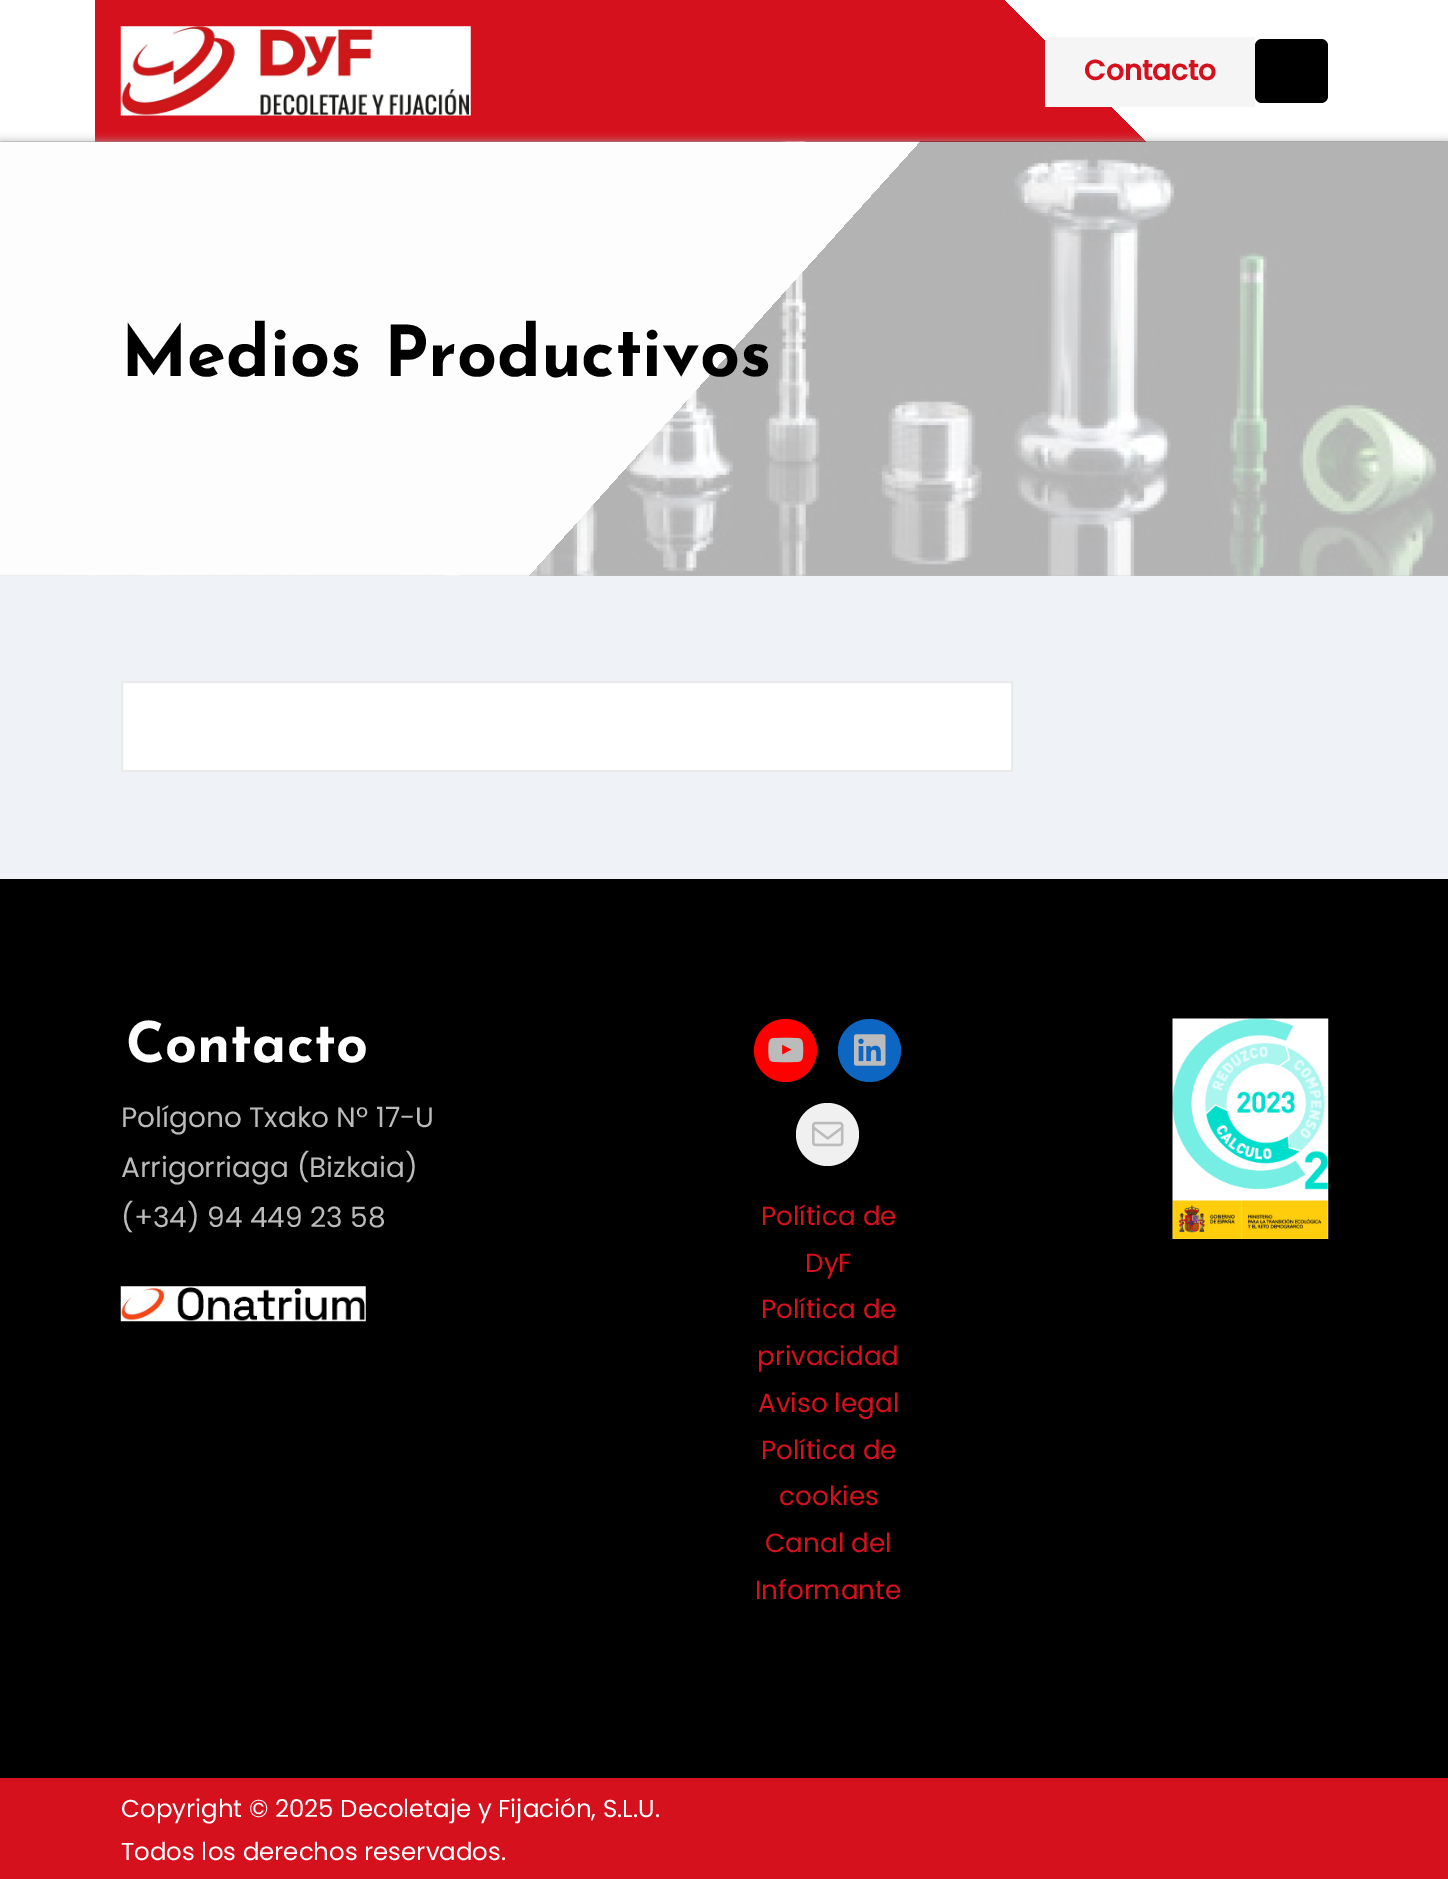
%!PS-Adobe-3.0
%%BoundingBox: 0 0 1448 1879
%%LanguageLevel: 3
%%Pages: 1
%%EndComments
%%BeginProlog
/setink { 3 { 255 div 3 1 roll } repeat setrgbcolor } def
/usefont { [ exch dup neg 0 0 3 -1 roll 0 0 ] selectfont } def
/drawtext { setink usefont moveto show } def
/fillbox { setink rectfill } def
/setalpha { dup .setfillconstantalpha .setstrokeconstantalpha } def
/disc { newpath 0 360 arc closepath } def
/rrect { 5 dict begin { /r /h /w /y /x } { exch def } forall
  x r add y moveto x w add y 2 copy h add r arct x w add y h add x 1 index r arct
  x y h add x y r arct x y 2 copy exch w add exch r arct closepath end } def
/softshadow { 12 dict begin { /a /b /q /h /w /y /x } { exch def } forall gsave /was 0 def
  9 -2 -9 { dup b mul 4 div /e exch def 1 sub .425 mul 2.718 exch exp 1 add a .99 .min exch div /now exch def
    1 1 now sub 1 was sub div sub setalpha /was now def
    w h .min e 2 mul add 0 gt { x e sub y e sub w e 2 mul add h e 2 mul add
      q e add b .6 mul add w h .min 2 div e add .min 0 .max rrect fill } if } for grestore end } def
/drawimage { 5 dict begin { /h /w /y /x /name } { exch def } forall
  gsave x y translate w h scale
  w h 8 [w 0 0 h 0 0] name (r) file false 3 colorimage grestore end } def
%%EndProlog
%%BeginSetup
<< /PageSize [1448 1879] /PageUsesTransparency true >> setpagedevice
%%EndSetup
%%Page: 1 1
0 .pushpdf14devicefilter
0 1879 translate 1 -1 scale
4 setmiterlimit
0 0 1448 1879 255 255 255 fillbox
gsave 95 0 moveto 1146 0 lineto 1146 142 lineto 95 142 lineto closepath clip newpath
<< /ShadingType 2 /ColorSpace /DeviceRGB /Coords [374 421 1075 -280] /Extend [true true] /Function << /FunctionType 3 /Domain [0 1] /Functions [<< /FunctionType 2 /Domain [0 1] /C0 [0.839 0.067 0.118] /C1 [0.839 0.067 0.118] /N 1 >> << /FunctionType 2 /Domain [0 1] /C0 [1 1 1] /C1 [1 1 1] /N 1 >>] /Bounds [0.75] /Encode [0 1 0 1] >> >> shfill grestore
(assets/img1.rgb) 120 26 351 90 drawimage
1045 37 210 70 245 245 245 fillbox
(Contacto) 1084 80 /Poppins-Bold 28 214 17 30 drawtext
0 0 0 setink
1255 39 73 64 7 rrect fill
170 170 170 setink
0 142 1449 434 0 4.5 1 softshadow
(assets/img2.rgb) 0 141 1448 435 drawimage
0.7 setalpha
0 142 1448 434 255 255 255 fillbox
1 setalpha
(Medios Productivos) 121 376 /JosefinSans-Bold 70 0 0 0 drawtext
0 576 1448 303 239 242 247 fillbox
255 255 255 setink
122 682 moveto 1012 682 lineto 1012 771 lineto 122 771 lineto closepath gsave fill grestore
234 234 234 setink
2 setlinewidth
stroke
0 879 1448 899 0 0 0 fillbox
(Contacto) 126 1062 /JosefinSans-Bold 56 255 255 255 drawtext
(Polígono Txako Nº 17-U) 121 1127 /Poppins-Regular 28 187 187 187 drawtext
(Arrigorriaga \(Bizkaia\)) 121 1177 /Poppins-Regular 28 187 187 187 drawtext
(\(+34\) 94 449 23 58) 121 1227 /Poppins-Regular 28 187 187 187 drawtext
(assets/img3.rgb) 120 1286 246 36 drawimage
(assets/img4.rgb) 1172 1018 157 221 drawimage
255 0 0 setink
785.5 1050.5 31.5 disc fill
(assets/img5.rgb) 768 1037 36 26 drawimage
13 102 194 setink
869.5 1050.5 31.5 disc fill
(assets/img6.rgb) 854 1034 32 32 drawimage
240 240 240 setink
827.5 1134.5 31.5 disc fill
(assets/img7.rgb) 812 1121 32 26 drawimage
(Política de) 761 1225 /Poppins-Regular 26.25 214 17 30 drawtext
(DyF) 805 1272 /Poppins-Regular 26.25 214 17 30 drawtext
(Política de) 761 1318 /Poppins-Regular 26.25 214 17 30 drawtext
(privacidad) 757 1365 /Poppins-Regular 26.25 214 17 30 drawtext
(Aviso legal) 758 1412 /Poppins-Regular 26.25 214 17 30 drawtext
(Política de) 761 1459 /Poppins-Regular 26.25 214 17 30 drawtext
(cookies) 779 1505 /Poppins-Regular 26.25 214 17 30 drawtext
(Canal del) 765 1552 /Poppins-Regular 26.25 214 17 30 drawtext
(Informante) 755 1599 /Poppins-Regular 26.25 214 17 30 drawtext
0 1778 1448 101 214 17 30 fillbox
(Copyright © 2025 Decoletaje y Fijación, S.L.U.) 121 1817 /Poppins-Regular 24.5 255 255 255 drawtext
(Todos los derechos reservados.) 121 1860 /Poppins-Regular 24.5 255 255 255 drawtext
.poppdf14devicefilter showpage
%%EOF
